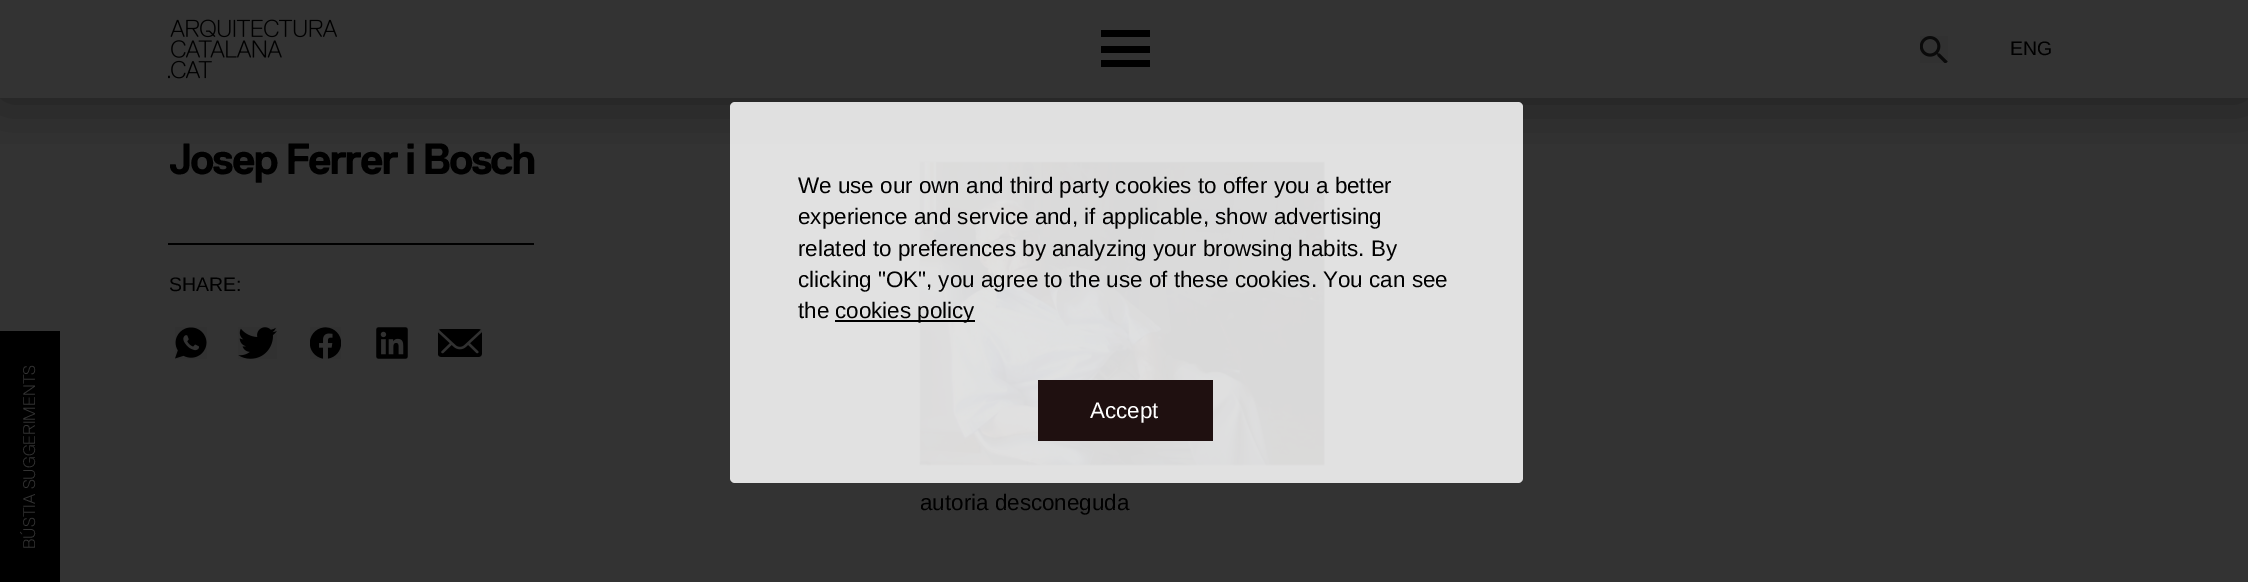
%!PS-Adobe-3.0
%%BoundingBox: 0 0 2248 582
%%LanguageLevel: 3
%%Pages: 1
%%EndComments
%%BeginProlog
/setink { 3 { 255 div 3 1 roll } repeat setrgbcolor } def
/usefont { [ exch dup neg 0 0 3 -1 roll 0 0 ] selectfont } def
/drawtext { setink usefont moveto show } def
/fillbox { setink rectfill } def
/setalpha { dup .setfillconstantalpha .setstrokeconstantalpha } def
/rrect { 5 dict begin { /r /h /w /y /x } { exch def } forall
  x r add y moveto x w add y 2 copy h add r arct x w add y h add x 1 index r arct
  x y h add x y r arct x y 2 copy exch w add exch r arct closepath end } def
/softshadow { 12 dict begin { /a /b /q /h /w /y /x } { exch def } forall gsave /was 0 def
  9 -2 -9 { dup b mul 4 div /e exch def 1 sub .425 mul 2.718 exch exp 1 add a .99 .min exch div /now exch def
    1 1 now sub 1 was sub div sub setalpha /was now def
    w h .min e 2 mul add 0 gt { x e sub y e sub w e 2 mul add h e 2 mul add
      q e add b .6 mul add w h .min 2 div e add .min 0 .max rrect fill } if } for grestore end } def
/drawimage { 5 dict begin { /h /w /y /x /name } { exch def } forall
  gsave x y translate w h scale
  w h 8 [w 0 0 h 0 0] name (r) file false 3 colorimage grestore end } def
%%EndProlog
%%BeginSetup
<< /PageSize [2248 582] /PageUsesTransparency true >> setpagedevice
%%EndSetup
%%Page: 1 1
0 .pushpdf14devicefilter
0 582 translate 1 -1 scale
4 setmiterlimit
0 0 2248 582 51 51 51 fillbox
(assets/img8.rgb) 919 161 406 305 drawimage
gsave
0 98 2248 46 rectclip
0 0 0 setink
0 0 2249 98 0 28 0.4 softshadow
grestore
(assets/img1.rgb) 168 19 169 60 drawimage
1101 46 49 7 0 0 0 fillbox
1101 30 49 7 0 0 0 fillbox
1101 60 49 7 0 0 0 fillbox
(assets/img2.rgb) 1920 36 28 27 drawimage
(ENG) 2010 55 /LiberationSans-Regular 19.5 0 0 0 drawtext
0 331 60 251 0 0 0 fillbox
/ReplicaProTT-Light 16.75 usefont
51 51 51 setink
gsave 35 549 translate -90 rotate 0 0 moveto (BÚSTIA SUGGERIMENTS) show grestore
/ReplicaProTT-Bold 43.75 usefont
0 0 0 setink
169 174 moveto -2.6 0 (Josep Ferrer i Bosch) ashow
168 243 366 2 0 0 0 fillbox
(SHARE:) 169 291 /LiberationSans-Regular 19.5 0 0 0 drawtext
(assets/img3.rgb) 175 327 32 32 drawimage
(assets/img4.rgb) 238 327 39 32 drawimage
(assets/img5.rgb) 310 327 31 32 drawimage
(assets/img6.rgb) 376 327 32 32 drawimage
(assets/img7.rgb) 438 329 44 28 drawimage
(autoria desconeguda) 920 510 /LiberationSans-Regular 22.4 0 0 0 drawtext
0.85 setalpha
255 255 255 setink
730 102 793 381 5 rrect fill
1 setalpha
(We use our own and third party cookies to offer you a better) 798 193 /LiberationSans-Regular 22.4 0 0 0 drawtext
(experience and service and, if applicable, show advertising) 798 224 /LiberationSans-Regular 22.4 0 0 0 drawtext
(related to preferences by analyzing your browsing habits. By) 798 256 /LiberationSans-Regular 22.4 0 0 0 drawtext
(clicking "OK", you agree to the use of these cookies. You can see) 798 287 /LiberationSans-Regular 22.4 0 0 0 drawtext
(the) 798 318 /LiberationSans-Regular 22.4 0 0 0 drawtext
835 320 140 2 0 0 0 fillbox
(cookies policy) 835 318 /LiberationSans-Regular 22.4 0 0 0 drawtext
1038 380 175 61 31 16 16 fillbox
(Accept) 1090 418 /LiberationSans-Regular 22.4 255 255 255 drawtext
.poppdf14devicefilter showpage
%%EOF
